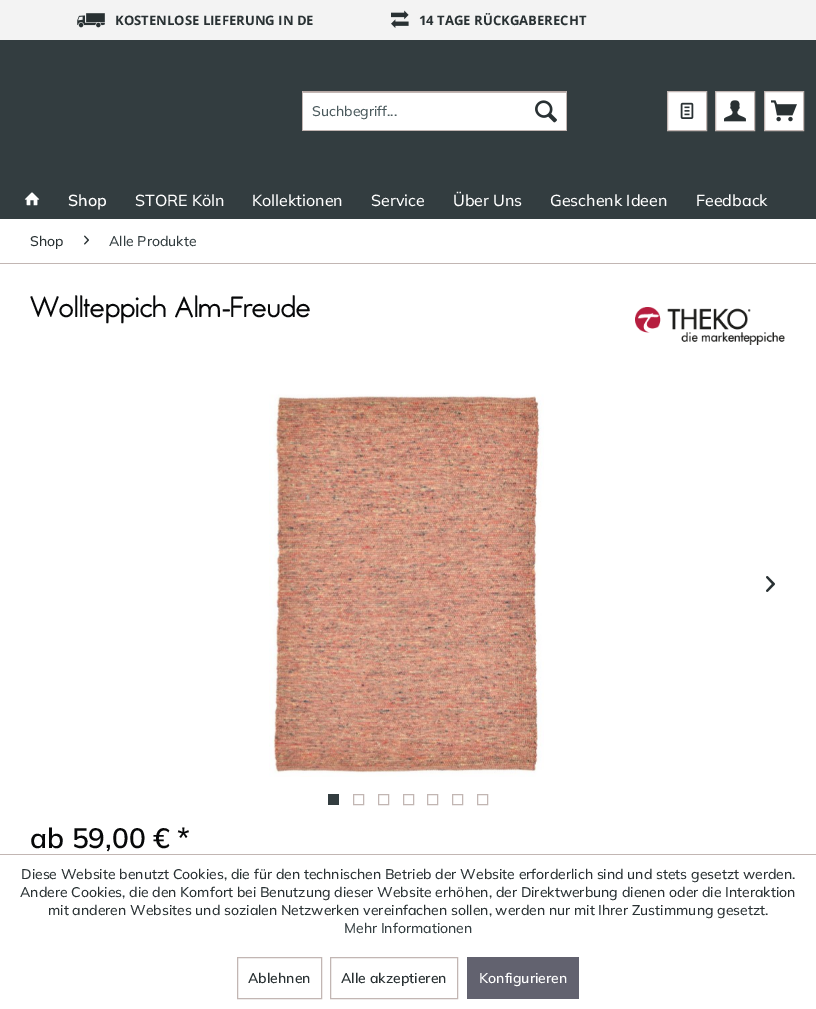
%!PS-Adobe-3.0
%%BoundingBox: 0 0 816 1009
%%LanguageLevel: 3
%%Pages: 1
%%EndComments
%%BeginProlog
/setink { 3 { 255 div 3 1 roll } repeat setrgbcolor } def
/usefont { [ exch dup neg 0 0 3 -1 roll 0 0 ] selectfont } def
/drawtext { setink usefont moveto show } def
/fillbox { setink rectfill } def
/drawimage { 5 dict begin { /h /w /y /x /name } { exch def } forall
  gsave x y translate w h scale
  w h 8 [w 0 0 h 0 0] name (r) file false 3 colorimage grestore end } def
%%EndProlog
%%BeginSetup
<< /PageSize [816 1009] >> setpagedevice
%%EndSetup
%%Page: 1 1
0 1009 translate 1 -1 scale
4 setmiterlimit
0 0 816 1009 51 61 64 fillbox
0 0 816 40 243 243 243 fillbox
(assets/img1.rgb) 77 13 28 15 drawimage
(KOSTENLOSE LIEFERUNG IN DE) 115 25 /OpenSans-Bold 13.1 41 49 51 drawtext
(assets/img2.rgb) 391 10 18 18 drawimage
(14 TAGE RÜCKGABERECHT) 419 25 /OpenSans-Bold 13.1 41 49 51 drawtext
303 93 263 37 255 255 255 fillbox
303 92 263 1 194 182 179 fillbox
302 91 265 1 182 168 164 fillbox
566 91 1 40 194 182 179 fillbox
302 130 265 1 194 182 179 fillbox
302 91 1 40 194 182 179 fillbox
(Suchbegriff...) 312 116 /Mulish-ExtraLight 14 75 90 93 drawtext
(assets/img3.rgb) 535 100 22 23 drawimage
255 255 255 setink
667.5 91.5 moveto 706.5 91.5 lineto 706.5 130.5 lineto 667.5 130.5 lineto closepath gsave fill grestore
194 182 179 setink
stroke
(assets/img4.rgb) 680 102 14 17 drawimage
255 255 255 setink
715.5 91.5 moveto 754.5 91.5 lineto 754.5 130.5 lineto 715.5 130.5 lineto closepath gsave fill grestore
194 182 179 setink
stroke
(assets/img5.rgb) 724 100 22 22 drawimage
255 255 255 setink
764.5 91.5 moveto 803.5 91.5 lineto 803.5 130.5 lineto 764.5 130.5 lineto closepath gsave fill grestore
194 182 179 setink
stroke
(assets/img6.rgb) 771 100 26 22 drawimage
(assets/img7.rgb) 24 192 16 14 drawimage
(Shop) 68 206 /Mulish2-ExtraLight 16 255 255 255 drawtext
(STORE Köln) 135 206 /Mulish-ExtraLight 16 255 255 255 drawtext
(Kollektionen) 252 206 /Mulish-ExtraLight 16 255 255 255 drawtext
(Service) 371 206 /Mulish-ExtraLight 16 255 255 255 drawtext
(Über Uns) 453 206 /Mulish-ExtraLight 16 255 255 255 drawtext
(Geschenk Ideen) 550 206 /Mulish-ExtraLight 16 255 255 255 drawtext
(Feedback) 696 206 /Mulish-ExtraLight 16 255 255 255 drawtext
0 219 816 635 255 255 255 fillbox
0 263 816 1 194 182 179 fillbox
(Shop) 30 246 /Mulish-ExtraLight 14 41 49 51 drawtext
(assets/img8.rgb) 84 235 5 10 drawimage
(Alle Produkte) 109 246 /Mulish-ExtraLight 14 51 61 64 drawtext
(Wollteppich Alm-Freude) 30 317 /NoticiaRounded-Regular 28 7 8 9 drawtext
(assets/img9.rgb) 635 307 150 38 drawimage
(assets/img10.rgb) 269 394 275 383 drawimage
(assets/img11.rgb) 766 576 9 16 drawimage
328 794 11 11 51 61 64 fillbox
194 182 179 setink
353.5 794.5 10 10 rectstroke
378.5 794.5 10 10 rectstroke
403.5 794.5 10 10 rectstroke
427.5 794.5 10 10 rectstroke
452.5 794.5 10 10 rectstroke
477.5 794.5 10 10 rectstroke
(ab 59,00 € *) 30 848 /Mulish2-ExtraLight 28 7 8 9 drawtext
0 855 816 154 255 255 255 fillbox
0 854 816 1 194 182 179 fillbox
(Diese Website benutzt Cookies, die für den technischen Betrieb der Website erforderlich sind und stets gesetzt werden.) 21 879 /Mulish-ExtraLight 14 41 49 51 drawtext
(Andere Cookies, die den Komfort bei Benutzung dieser Website erhöhen, der Direktwerbung dienen oder die Interaktion) 20 897 /Mulish-ExtraLight 14 41 49 51 drawtext
(mit anderen Websites und sozialen Netzwerken vereinfachen sollen, werden nur mit Ihrer Zustimmung gesetzt.) 48 915 /Mulish-ExtraLight 14 41 49 51 drawtext
(Mehr Informationen) 344 933 /Mulish-ExtraLight 14 51 61 64 drawtext
194 182 179 setink
237.5 957.5 84 41 rectstroke
(Ablehnen) 248 983 /Mulish2-ExtraLight 14 41 49 51 drawtext
194 182 179 setink
330.5 957.5 127 41 rectstroke
(Alle akzeptieren) 341 983 /Mulish2-ExtraLight 14 41 49 51 drawtext
467 957 112 42 98 98 111 fillbox
(Konfigurieren) 479 983 /Mulish2-ExtraLight 14 255 255 255 drawtext
showpage
%%EOF
